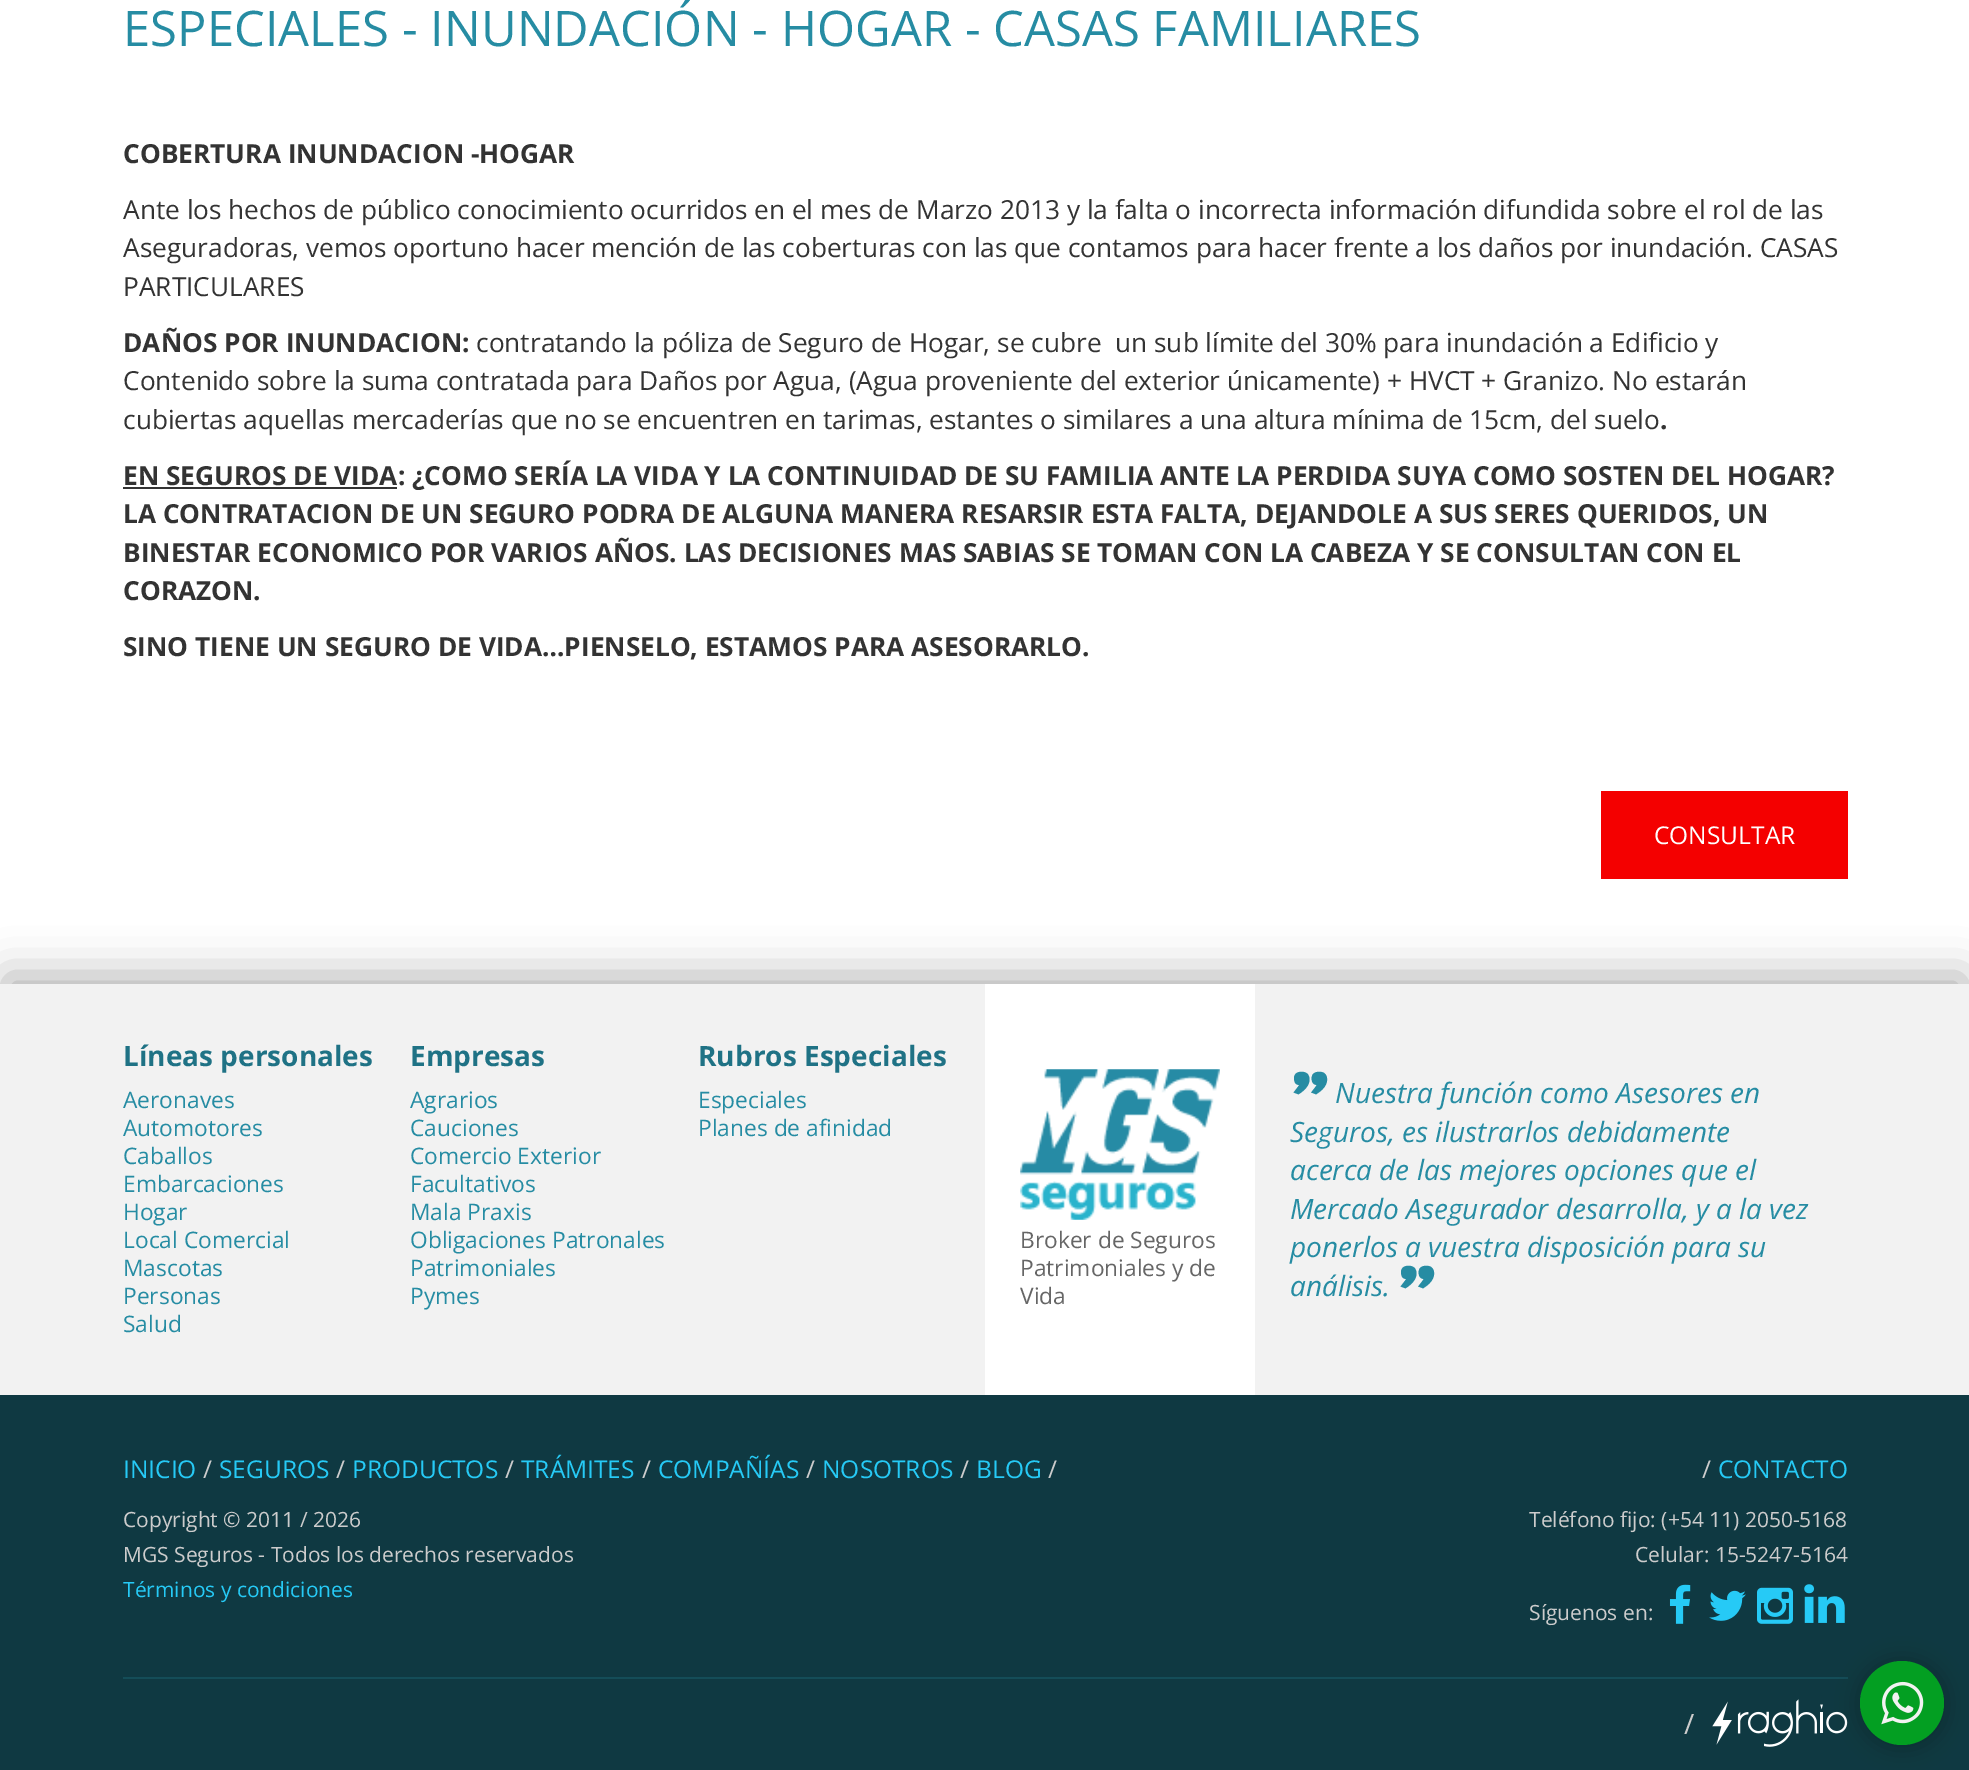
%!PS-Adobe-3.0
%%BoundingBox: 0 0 1969 1770
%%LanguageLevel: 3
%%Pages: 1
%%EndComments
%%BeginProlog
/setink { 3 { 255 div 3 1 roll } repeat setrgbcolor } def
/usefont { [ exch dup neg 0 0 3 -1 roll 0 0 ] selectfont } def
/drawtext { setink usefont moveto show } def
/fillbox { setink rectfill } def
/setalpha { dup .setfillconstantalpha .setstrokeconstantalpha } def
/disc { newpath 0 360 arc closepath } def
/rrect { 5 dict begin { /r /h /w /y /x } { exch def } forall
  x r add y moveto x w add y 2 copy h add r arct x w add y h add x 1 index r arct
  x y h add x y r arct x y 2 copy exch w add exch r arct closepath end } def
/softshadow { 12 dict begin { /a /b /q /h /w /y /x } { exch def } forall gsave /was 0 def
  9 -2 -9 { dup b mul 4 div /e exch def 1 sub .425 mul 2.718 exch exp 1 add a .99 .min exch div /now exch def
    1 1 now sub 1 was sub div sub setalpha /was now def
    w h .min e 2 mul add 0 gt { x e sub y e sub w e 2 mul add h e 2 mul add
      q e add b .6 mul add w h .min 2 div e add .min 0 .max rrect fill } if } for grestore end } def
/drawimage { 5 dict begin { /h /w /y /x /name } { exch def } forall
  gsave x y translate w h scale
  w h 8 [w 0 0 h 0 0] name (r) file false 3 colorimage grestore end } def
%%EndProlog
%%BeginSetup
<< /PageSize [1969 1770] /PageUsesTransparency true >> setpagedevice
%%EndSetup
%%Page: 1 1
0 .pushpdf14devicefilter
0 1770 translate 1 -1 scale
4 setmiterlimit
0 0 1969 1770 255 255 255 fillbox
(ESPECIALES - INUNDACIÓN - HOGAR - CASAS FAMILIARES) 123 46 /OpenSans-Regular 49 38 140 163 drawtext
(COBERTURA INUNDACION -HOGAR) 123 163 /OpenSans-Bold 26.25 51 51 51 drawtext
(Ante los hechos de público conocimiento ocurridos en el mes de Marzo 2013 y la falta o incorrecta información difundida sobre el rol de las) 123 219 /OpenSans-Regular 26.25 51 51 51 drawtext
(Aseguradoras, vemos oportuno hacer mención de las coberturas con las que contamos para hacer frente a los daños por inundación. CASAS) 123 257 /OpenSans-Regular 26.25 51 51 51 drawtext
(PARTICULARES) 123 296 /OpenSans-Regular 26.25 51 51 51 drawtext
(DAÑOS POR INUNDACION:) 123 352 /OpenSans-Bold 26.25 51 51 51 drawtext
(contratando la póliza de Seguro de Hogar, se cubre  un sub límite del 30% para inundación a Edificio y) 476 352 /OpenSans-Regular 26.25 51 51 51 drawtext
(Contenido sobre la suma contratada para Daños por Agua, \(Agua proveniente del exterior únicamente\) + HVCT + Granizo. No estarán) 123 390 /OpenSans-Regular 26.25 51 51 51 drawtext
(cubiertas aquellas mercaderías que no se encuentren en tarimas, estantes o similares a una altura mínima de 15cm, del suelo) 123 429 /OpenSans-Regular 26.25 51 51 51 drawtext
(.) 1660 429 /OpenSans-Bold 26.25 51 51 51 drawtext
123 487 274 2 51 51 51 fillbox
(EN SEGUROS DE VIDA: ¿COMO SERÍA LA VIDA Y LA CONTINUIDAD DE SU FAMILIA ANTE LA PERDIDA SUYA COMO SOSTEN DEL HOGAR?) 123 485 /OpenSans-Bold 26.25 51 51 51 drawtext
(LA CONTRATACION DE UN SEGURO PODRA DE ALGUNA MANERA RESARSIR ESTA FALTA, DEJANDOLE A SUS SERES QUERIDOS, UN) 123 523 /OpenSans-Bold 26.25 51 51 51 drawtext
(BINESTAR ECONOMICO POR VARIOS AÑOS. LAS DECISIONES MAS SABIAS SE TOMAN CON LA CABEZA Y SE CONSULTAN CON EL) 123 562 /OpenSans-Bold 26.25 51 51 51 drawtext
(CORAZON.) 123 600 /OpenSans-Bold 26.25 51 51 51 drawtext
(SINO TIENE UN SEGURO DE VIDA…PIENSELO, ESTAMOS PARA ASESORARLO.) 123 656 /OpenSans-Bold 26.25 51 51 51 drawtext
1601 791 247 88 244 0 0 fillbox
(CONSULTAR) 1654 844 /OpenSans-Regular 24.5 255 255 255 drawtext
176 176 176 setink
5 975 1960 401 0 22 1 softshadow
0 984 1969 411 242 242 242 fillbox
(Líneas personales) 123 1066 /OpenSans-Bold 28 31 114 133 drawtext
(Aeronaves) 123 1108 /OpenSans-Regular 22.75 38 140 163 drawtext
(Automotores) 123 1136 /OpenSans-Regular 22.75 38 140 163 drawtext
(Caballos) 123 1164 /OpenSans-Regular 22.75 38 140 163 drawtext
(Embarcaciones) 123 1192 /OpenSans-Regular 22.75 38 140 163 drawtext
(Hogar) 123 1220 /OpenSans-Regular 22.75 38 140 163 drawtext
(Local Comercial) 123 1248 /OpenSans-Regular 22.75 38 140 163 drawtext
(Mascotas) 123 1276 /OpenSans-Regular 22.75 38 140 163 drawtext
(Personas) 123 1304 /OpenSans-Regular 22.75 38 140 163 drawtext
(Salud) 123 1332 /OpenSans-Regular 22.75 38 140 163 drawtext
(Empresas) 410 1066 /OpenSans-Bold 28 31 114 133 drawtext
(Agrarios) 410 1108 /OpenSans-Regular 22.75 38 140 163 drawtext
(Cauciones) 410 1136 /OpenSans-Regular 22.75 38 140 163 drawtext
(Comercio Exterior) 410 1164 /OpenSans-Regular 22.75 38 140 163 drawtext
(Facultativos) 410 1192 /OpenSans-Regular 22.75 38 140 163 drawtext
(Mala Praxis) 410 1220 /OpenSans-Regular 22.75 38 140 163 drawtext
(Obligaciones Patronales) 410 1248 /OpenSans-Regular 22.75 38 140 163 drawtext
(Patrimoniales) 410 1276 /OpenSans-Regular 22.75 38 140 163 drawtext
(Pymes) 410 1304 /OpenSans-Regular 22.75 38 140 163 drawtext
(Rubros Especiales) 698 1066 /OpenSans-Bold 28 31 114 133 drawtext
(Especiales) 698 1108 /OpenSans-Regular 22.75 38 140 163 drawtext
(Planes de afinidad) 698 1136 /OpenSans-Regular 22.75 38 140 163 drawtext
985 984 270 411 255 255 255 fillbox
(assets/img1.rgb) 1020 1069 200 151 drawimage
(Broker de Seguros) 1020 1248 /OpenSans-Regular 22.75 102 102 102 drawtext
(Patrimoniales y de) 1020 1276 /OpenSans-Regular 22.75 102 102 102 drawtext
(Vida) 1020 1304 /OpenSans-Regular 22.75 102 102 102 drawtext
(") 1290 1128 /PassionOne-Regular 88 38 140 163 drawtext
(Nuestra función como Asesores en) 1335 1103 /OpenSans-Italic 28 38 140 163 drawtext
(Seguros, es ilustrarlos debidamente) 1290 1142 /OpenSans-Italic 28 38 140 163 drawtext
(acerca de las mejores opciones que el) 1290 1180 /OpenSans-Italic 28 38 140 163 drawtext
(Mercado Asegurador desarrolla, y a la vez) 1290 1219 /OpenSans-Italic 28 38 140 163 drawtext
(ponerlos a vuestra disposición para su) 1290 1257 /OpenSans-Italic 28 38 140 163 drawtext
(análisis.) 1290 1296 /OpenSans-Italic 28 38 140 163 drawtext
(") 1397 1322 /PassionOne-Regular 88 38 140 163 drawtext
0 1395 1969 375 15 57 66 fillbox
(INICIO) 123 1478 /OpenSans-Regular 24.5 38 202 246 drawtext
(/) 203 1478 /OpenSans-Regular 24.5 204 204 204 drawtext
(SEGUROS) 219 1478 /OpenSans-Regular 24.5 38 202 246 drawtext
(/) 336 1478 /OpenSans-Regular 24.5 204 204 204 drawtext
(PRODUCTOS) 352 1478 /OpenSans-Regular 24.5 38 202 246 drawtext
(/) 505 1478 /OpenSans-Regular 24.5 204 204 204 drawtext
(TRÁMITES) 521 1478 /OpenSans-Regular 24.5 38 202 246 drawtext
(/) 642 1478 /OpenSans-Regular 24.5 204 204 204 drawtext
(COMPAÑÍAS) 658 1478 /OpenSans-Regular 24.5 38 202 246 drawtext
(/) 806 1478 /OpenSans-Regular 24.5 204 204 204 drawtext
(NOSOTROS) 822 1478 /OpenSans-Regular 24.5 38 202 246 drawtext
(/) 960 1478 /OpenSans-Regular 24.5 204 204 204 drawtext
(BLOG) 976 1478 /OpenSans-Regular 24.5 38 202 246 drawtext
(/) 1048 1478 /OpenSans-Regular 24.5 204 204 204 drawtext
(/) 1702 1478 /OpenSans-Regular 24.5 204 204 204 drawtext
(CONTACTO) 1718 1478 /OpenSans-Regular 24.5 38 202 246 drawtext
(Copyright © 2011 / 2026) 123 1527 /OpenSans-Regular 21 204 204 204 drawtext
(MGS Seguros - Todos los derechos reservados) 123 1562 /OpenSans-Regular 21 204 204 204 drawtext
(Términos y condiciones) 123 1597 /OpenSans-Regular 21 38 202 246 drawtext
(Teléfono fijo: \(+54 11\) 2050-5168) 1529 1527 /OpenSans-Regular 21 204 204 204 drawtext
(Celular: 15-5247-5164) 1635 1562 /OpenSans-Regular 21 204 204 204 drawtext
(Síguenos en:) 1529 1620 /OpenSans-Regular 21 204 204 204 drawtext
(assets/img2.rgb) 1669 1584 22 40 drawimage
(assets/img3.rgb) 1709 1590 37 31 drawimage
(assets/img4.rgb) 1757 1587 36 37 drawimage
(assets/img5.rgb) 1804 1584 41 39 drawimage
123 1677 1725 2 20 77 88 fillbox
(/) 1684 1734 /OpenSans-Regular 28 204 204 204 drawtext
(assets/img6.rgb) 1712 1699 136 48 drawimage
0 0 0 setink
1857 1659 91 91 45.5 10.5 0.2 softshadow
3 159 34 setink
1902 1703 42 disc fill
(assets/img7.rgb) 1881 1681 43 44 drawimage
.poppdf14devicefilter showpage
%%EOF
